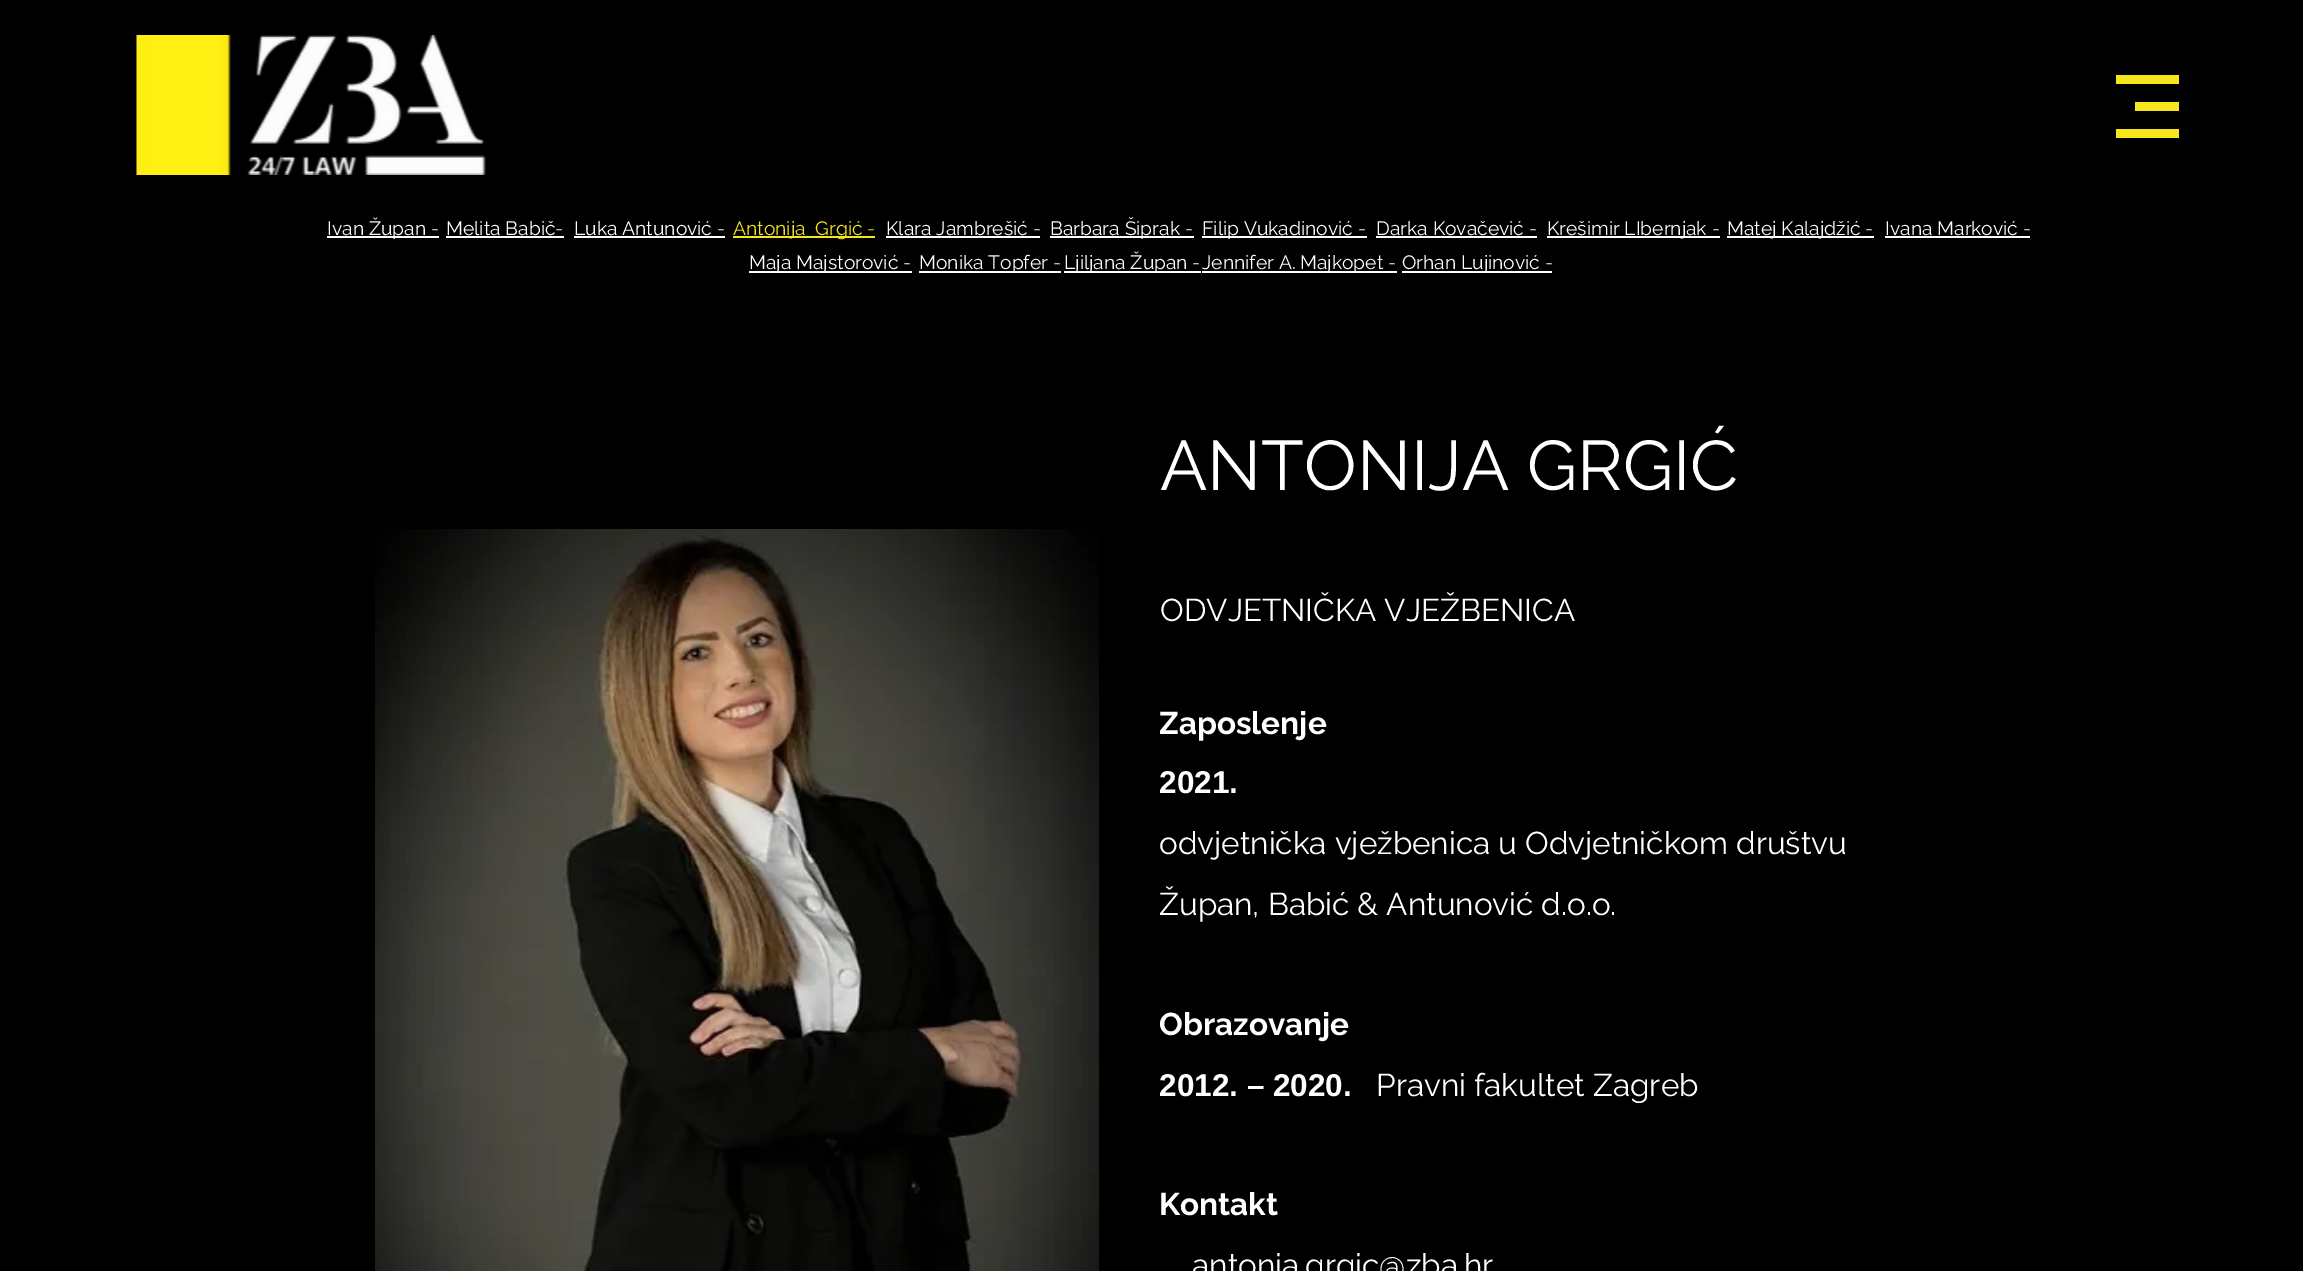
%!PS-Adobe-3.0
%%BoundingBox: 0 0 2303 1271
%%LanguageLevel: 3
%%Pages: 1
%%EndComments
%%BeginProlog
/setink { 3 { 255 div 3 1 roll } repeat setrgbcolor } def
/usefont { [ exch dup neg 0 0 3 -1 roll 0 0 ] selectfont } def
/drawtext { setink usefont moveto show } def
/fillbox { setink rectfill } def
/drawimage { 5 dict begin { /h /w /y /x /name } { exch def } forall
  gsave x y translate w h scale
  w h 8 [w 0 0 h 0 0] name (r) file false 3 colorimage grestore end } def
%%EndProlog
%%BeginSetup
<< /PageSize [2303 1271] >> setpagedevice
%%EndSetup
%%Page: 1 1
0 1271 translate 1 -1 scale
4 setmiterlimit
0 0 2303 1271 0 0 0 fillbox
(assets/img1.rgb) 136 35 350 140 drawimage
2116 75 63 9 246 231 29 fillbox
2135 102 44 9 246 231 29 fillbox
2116 129 63 9 246 231 29 fillbox
327 236 112 2 255 255 255 fillbox
(Ivan Župan -) 327 235 /Raleway-Regular 19.25 255 255 255 drawtext
(Melita Babič-) 446 235 /Raleway-Regular 19.25 255 255 255 drawtext
446 236 118 2 255 255 255 fillbox
(Luka Antunović -) 574 235 /Raleway-Regular 19.25 255 255 255 drawtext
574 236 151 2 255 255 255 fillbox
733 236 142 2 246 231 29 fillbox
(Antonija  Grgić -) 733 235 /Raleway-Regular 19.25 246 231 29 drawtext
(Klara Jambrešić -) 886 235 /Raleway-Regular 19.25 255 255 255 drawtext
886 236 154 2 255 255 255 fillbox
1050 236 144 2 255 255 255 fillbox
(Barbara Šiprak -) 1050 235 /Raleway-Regular 19.25 255 255 255 drawtext
1202 236 165 2 255 255 255 fillbox
(Filip Vukadinović -) 1202 235 /Raleway-Regular 19.25 255 255 255 drawtext
(Darka Kovačević -) 1376 235 /Raleway-Regular 19.25 255 255 255 drawtext
1376 236 161 2 255 255 255 fillbox
1547 236 173 2 255 255 255 fillbox
(Krešimir LIbernjak -) 1547 235 /Raleway-Regular 19.25 255 255 255 drawtext
1727 236 147 2 255 255 255 fillbox
(Matej Kalajdžić -) 1727 235 /Raleway-Regular 19.25 255 255 255 drawtext
(Ivana Marković -) 1885 235 /Raleway-Regular 19.25 255 255 255 drawtext
1885 236 145 2 255 255 255 fillbox
749 271 163 2 255 255 255 fillbox
(Maja Majstorović -) 749 269 /Raleway-Regular 19.25 255 255 255 drawtext
919 271 142 2 255 255 255 fillbox
(Monika Topfer -) 919 269 /Raleway-Regular 19.25 255 255 255 drawtext
1064 271 137 2 255 255 255 fillbox
(Ljiljana Župan -) 1064 269 /Raleway-Regular 19.25 255 255 255 drawtext
1202 271 195 2 255 255 255 fillbox
(Jennifer A. Majkopet -) 1202 269 /Raleway-Regular 19.25 255 255 255 drawtext
1402 271 150 2 255 255 255 fillbox
(Orhan Lujinović -) 1402 269 /Raleway-Regular 19.25 255 255 255 drawtext
(assets/img2.rgb) 375 529 724 742 drawimage
(ANTONIJA GRGIĆ) 1160 490 /Raleway-Regular 70 255 255 255 drawtext
(ODVJETNIČKA VJEŽBENICA) 1160 621 /Raleway-Regular 31.5 255 255 255 drawtext
(Zaposlenje) 1159 734 /Raleway-Bold 31.5 255 255 255 drawtext
(2021.) 1159 793 /LiberationSans-Bold 31.5 255 255 255 drawtext
(odvjetnička vježbenica u Odvjetničkom društvu) 1159 854 /Raleway-Regular 31.5 255 255 255 drawtext
(Župan, Babić & Antunović d.o.o.) 1159 915 /Raleway-Regular 31.5 255 255 255 drawtext
(Obrazovanje) 1159 1035 /Raleway-Bold 31.5 255 255 255 drawtext
(2012. – 2020.) 1159 1096 /LiberationSans-Bold 31.5 255 255 255 drawtext
(Pravni fakultet Zagreb) 1376 1096 /Raleway-Regular 31.5 255 255 255 drawtext
(Kontakt) 1159 1215 /Raleway-Bold 31.5 255 255 255 drawtext
(antonia.grgic@zba.hr) 1192 1276 /Raleway-Regular 31.5 255 255 255 drawtext
showpage
%%EOF
